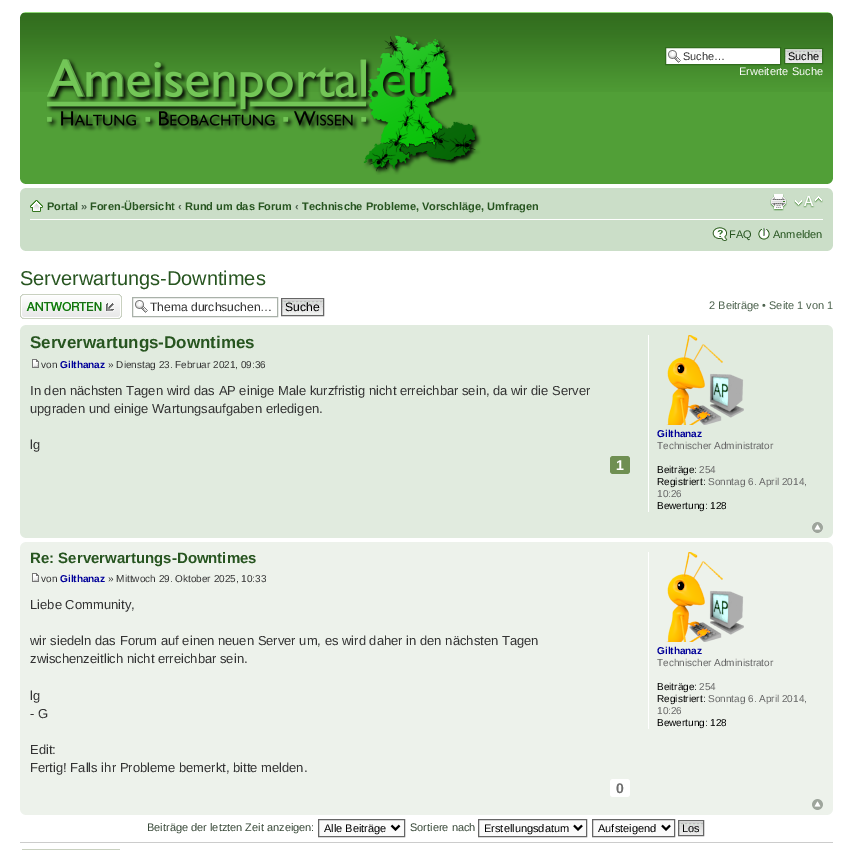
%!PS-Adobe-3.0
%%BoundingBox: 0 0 853 850
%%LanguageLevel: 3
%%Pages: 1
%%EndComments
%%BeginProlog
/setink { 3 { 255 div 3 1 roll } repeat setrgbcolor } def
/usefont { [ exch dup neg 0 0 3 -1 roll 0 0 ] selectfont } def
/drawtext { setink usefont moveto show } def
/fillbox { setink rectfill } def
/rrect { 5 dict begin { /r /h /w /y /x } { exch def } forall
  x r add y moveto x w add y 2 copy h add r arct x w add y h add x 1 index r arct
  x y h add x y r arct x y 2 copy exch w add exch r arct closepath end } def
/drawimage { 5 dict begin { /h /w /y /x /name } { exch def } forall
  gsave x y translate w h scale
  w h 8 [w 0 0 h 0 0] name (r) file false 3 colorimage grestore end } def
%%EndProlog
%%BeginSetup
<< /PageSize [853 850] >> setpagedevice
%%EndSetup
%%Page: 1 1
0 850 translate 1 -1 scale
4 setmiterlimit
0 0 853 850 255 255 255 fillbox
20 92 813 92 81 159 55 fillbox
(assets/img1.rgb) 20 12 813 80 drawimage
(assets/img2.rgb) 20 12 5 5 drawimage
(assets/img3.rgb) 828 12 5 5 drawimage
(assets/img4.rgb) 46 35 436 140 drawimage
666 48 114 16 255 255 255 fillbox
(assets/img5.rgb) 668 50 13 13 drawimage
49 108 30 setink
665.5 47.5 115 17 rectstroke
(Suche…) 683 60 /LiberationSans-Regular 11 51 51 51 drawtext
(assets/img6.rgb) 785 49 37 14 drawimage
49 108 30 setink
784.5 48.5 38 15 rectstroke
(Suche) 788 60 /LiberationSans-Regular 11 0 0 0 drawtext
(Erweiterte Suche) 739 75 /LiberationSans-Regular 11 255 255 255 drawtext
(assets/img7.rgb) 20 179 5 5 drawimage
(assets/img8.rgb) 828 179 5 5 drawimage
20 188 813 63 203 222 200 fillbox
(assets/img9.rgb) 20 188 5 5 drawimage
(assets/img10.rgb) 828 188 5 5 drawimage
30 219 793 1 255 255 255 fillbox
(assets/img11.rgb) 30 200 13 12 drawimage
(Portal) 47 210 /LiberationSans-Bold 11 39 85 32 drawtext
(») 81 210 /LiberationSans-Bold 11 76 98 77 drawtext
(Foren-Übersicht) 90 210 /LiberationSans-Bold 11 39 85 32 drawtext
(‹) 178 210 /LiberationSans-Bold 11 76 98 77 drawtext
(Rund um das Forum) 185 210 /LiberationSans-Bold 11 39 85 32 drawtext
(‹) 295 210 /LiberationSans-Bold 11 76 98 77 drawtext
(Technische Probleme, Vorschläge, Umfragen) 302 210 /LiberationSans-Bold 11 39 85 32 drawtext
(assets/img12.rgb) 770 194 17 17 drawimage
(assets/img13.rgb) 794 196 29 12 drawimage
(assets/img14.rgb) 712 227 16 14 drawimage
(FAQ) 729 238 /LiberationSans-Regular 11 39 85 32 drawtext
(assets/img15.rgb) 758 228 12 12 drawimage
(Anmelden) 773 238 /LiberationSans-Regular 11 39 85 32 drawtext
(assets/img16.rgb) 20 246 5 5 drawimage
(assets/img17.rgb) 828 246 5 5 drawimage
(Serverwartungs-Downtimes) 20 285 /LiberationSans-Regular 20 39 85 32 drawtext
(assets/img18.rgb) 20 294 102 25 drawimage
(assets/img5.rgb) 135 300 13 13 drawimage
169 177 169 setink
132.5 297.5 145 19 rectstroke
(Thema durchsuchen…) 150 311 /LiberationSans-Regular 12.1 51 51 51 drawtext
(assets/img19.rgb) 282 299 41 16 drawimage
102 102 102 setink
281.5 298.5 42 17 rectstroke
(Suche) 285 311 /LiberationSans-Regular 12.1 0 0 0 drawtext
(2 Beiträge • Seite 1 von 1) 709 309 /LiberationSans-Regular 11 76 98 77 drawtext
20 325 813 213 225 235 223 fillbox
(assets/img20.rgb) 20 325 5 5 drawimage
(assets/img21.rgb) 828 325 5 5 drawimage
(Serverwartungs-Downtimes) 30 348 /LiberationSans-Bold 17 39 85 32 drawtext
(assets/img22.rgb) 32 359 7 9 drawimage
(von) 41 368 /LiberationSans-Regular 10 51 51 51 drawtext
(Gilthanaz) 60 368 /LiberationSans-Bold 10 0 0 153 drawtext
(» Dienstag 23. Februar 2021, 09:36) 108 368 /LiberationSans-Regular 10 51 51 51 drawtext
(In den nächsten Tagen wird das AP einige Male kurzfristig nicht erreichbar sein, da wir die Server) 30 395 /LiberationSans-Regular 13 51 51 51 drawtext
(upgraden und einige Wartungsaufgaben erledigen.) 30 413 /LiberationSans-Regular 13 51 51 51 drawtext
(lg) 30 449 /LiberationSans-Regular 13 51 51 51 drawtext
111 143 82 setink
610 456 20 18 3 rrect fill
(1) 616 470 /LiberationSans-Bold 14 255 255 255 drawtext
648 335 1 177 255 255 255 fillbox
(assets/img23.rgb) 666 335 78 90 drawimage
(Gilthanaz) 657 437 /LiberationSans-Bold 10 0 0 153 drawtext
(Technischer Administrator) 657 449 /LiberationSans-Regular 10 102 102 102 drawtext
(Beiträge:) 657 473 /LiberationSans-Regular 10 0 0 0 drawtext
(254) 699 473 /LiberationSans-Regular 10 102 102 102 drawtext
(Registriert:) 657 485 /LiberationSans-Regular 10 0 0 0 drawtext
(Sonntag 6. April 2014,) 708 485 /LiberationSans-Regular 10 102 102 102 drawtext
(10:26) 657 497 /LiberationSans-Regular 10 102 102 102 drawtext
(Bewertung: 128) 657 509 /LiberationSans-Regular 10 0 0 0 drawtext
(assets/img24.rgb) 812 522 11 11 drawimage
(assets/img25.rgb) 20 533 5 5 drawimage
(assets/img26.rgb) 828 533 5 5 drawimage
20 542 813 273 237 242 235 fillbox
(assets/img27.rgb) 20 542 5 5 drawimage
(assets/img28.rgb) 828 542 5 5 drawimage
(Re: Serverwartungs-Downtimes) 30 563 /LiberationSans-Bold 15 39 85 32 drawtext
(assets/img29.rgb) 32 573 7 9 drawimage
(von) 41 582 /LiberationSans-Regular 10 51 51 51 drawtext
(Gilthanaz) 60 582 /LiberationSans-Bold 10 0 0 153 drawtext
(» Mittwoch 29. Oktober 2025, 10:33) 108 582 /LiberationSans-Regular 10 51 51 51 drawtext
(Liebe Community,) 30 609 /LiberationSans-Regular 13 51 51 51 drawtext
(wir siedeln das Forum auf einen neuen Server um, es wird daher in den nächsten Tagen) 30 645 /LiberationSans-Regular 13 51 51 51 drawtext
(zwischenzeitlich nicht erreichbar sein.) 30 663 /LiberationSans-Regular 13 51 51 51 drawtext
(lg) 30 700 /LiberationSans-Regular 13 51 51 51 drawtext
(- G) 30 718 /LiberationSans-Regular 13 51 51 51 drawtext
(Edit:) 30 754 /LiberationSans-Regular 13 51 51 51 drawtext
(Fertig! Falls ihr Probleme bemerkt, bitte melden.) 30 772 /LiberationSans-Regular 13 51 51 51 drawtext
255 255 255 setink
610 779 20 18 3 rrect fill
(0) 616 793 /LiberationSans-Bold 14 110 110 110 drawtext
648 552 1 177 255 255 255 fillbox
(assets/img30.rgb) 666 552 78 90 drawimage
(Gilthanaz) 657 654 /LiberationSans-Bold 10 0 0 153 drawtext
(Technischer Administrator) 657 666 /LiberationSans-Regular 10 102 102 102 drawtext
(Beiträge:) 657 690 /LiberationSans-Regular 10 0 0 0 drawtext
(254) 699 690 /LiberationSans-Regular 10 102 102 102 drawtext
(Registriert:) 657 702 /LiberationSans-Regular 10 0 0 0 drawtext
(Sonntag 6. April 2014,) 708 702 /LiberationSans-Regular 10 102 102 102 drawtext
(10:26) 657 714 /LiberationSans-Regular 10 102 102 102 drawtext
(Bewertung: 128) 657 726 /LiberationSans-Regular 10 0 0 0 drawtext
(assets/img31.rgb) 812 799 11 11 drawimage
(assets/img32.rgb) 20 810 5 5 drawimage
(assets/img33.rgb) 828 810 5 5 drawimage
(Beiträge der letzten Zeit anzeigen:) 147 831 /LiberationSans-Regular 11 58 74 58 drawtext
250 250 250 setink
318.5 819.5 moveto 404.5 819.5 lineto 404.5 836.5 lineto 318.5 836.5 lineto closepath gsave fill grestore
102 102 102 setink
stroke
0 0 0 setink
2 setlinewidth
391.5 825.5 moveto 395.5 829.5 lineto 399.5 825.5 lineto stroke
(Alle Beiträge) 324 832 /LiberationSans-Regular 11 0 0 0 drawtext
(Sortiere nach) 410 831 /LiberationSans-Regular 11 58 74 58 drawtext
250 250 250 setink
478.5 819.5 moveto 586.5 819.5 lineto 586.5 836.5 lineto 478.5 836.5 lineto closepath gsave fill grestore
102 102 102 setink
1 setlinewidth
stroke
0 0 0 setink
2 setlinewidth
574 825.5 moveto 578 829.5 lineto 582 825.5 lineto stroke
(Erstellungsdatum) 484 832 /LiberationSans-Regular 11 0 0 0 drawtext
250 250 250 setink
592.5 819.5 moveto 674.5 819.5 lineto 674.5 836.5 lineto 592.5 836.5 lineto closepath gsave fill grestore
102 102 102 setink
1 setlinewidth
stroke
0 0 0 setink
2 setlinewidth
662 825.5 moveto 666 829.5 lineto 670 825.5 lineto stroke
(Aufsteigend) 598 832 /LiberationSans-Regular 11 0 0 0 drawtext
(assets/img34.rgb) 679 821 24 14 drawimage
102 102 102 setink
1 setlinewidth
678.5 820.5 25 15 rectstroke
(Los) 682 832 /LiberationSans-Regular 11 0 0 0 drawtext
20 842 813 1 204 204 204 fillbox
22 849 98 1 201 209 192 fillbox
showpage
%%EOF
